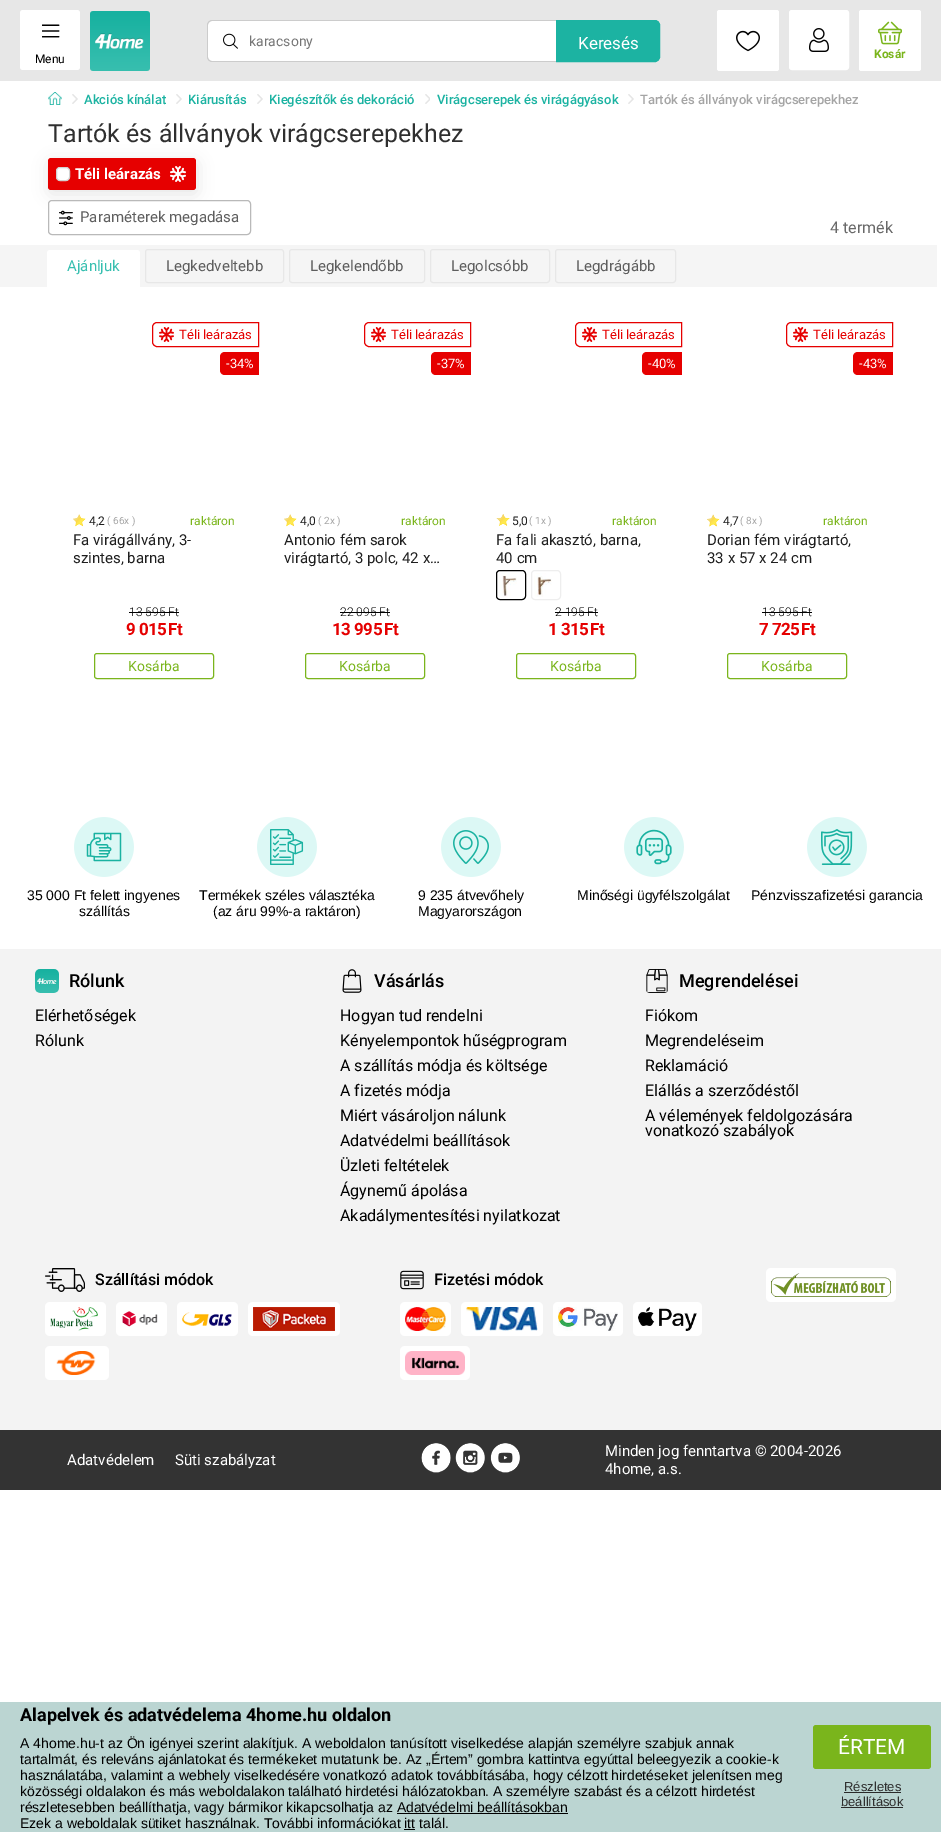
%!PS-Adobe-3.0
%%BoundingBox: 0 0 941 1832
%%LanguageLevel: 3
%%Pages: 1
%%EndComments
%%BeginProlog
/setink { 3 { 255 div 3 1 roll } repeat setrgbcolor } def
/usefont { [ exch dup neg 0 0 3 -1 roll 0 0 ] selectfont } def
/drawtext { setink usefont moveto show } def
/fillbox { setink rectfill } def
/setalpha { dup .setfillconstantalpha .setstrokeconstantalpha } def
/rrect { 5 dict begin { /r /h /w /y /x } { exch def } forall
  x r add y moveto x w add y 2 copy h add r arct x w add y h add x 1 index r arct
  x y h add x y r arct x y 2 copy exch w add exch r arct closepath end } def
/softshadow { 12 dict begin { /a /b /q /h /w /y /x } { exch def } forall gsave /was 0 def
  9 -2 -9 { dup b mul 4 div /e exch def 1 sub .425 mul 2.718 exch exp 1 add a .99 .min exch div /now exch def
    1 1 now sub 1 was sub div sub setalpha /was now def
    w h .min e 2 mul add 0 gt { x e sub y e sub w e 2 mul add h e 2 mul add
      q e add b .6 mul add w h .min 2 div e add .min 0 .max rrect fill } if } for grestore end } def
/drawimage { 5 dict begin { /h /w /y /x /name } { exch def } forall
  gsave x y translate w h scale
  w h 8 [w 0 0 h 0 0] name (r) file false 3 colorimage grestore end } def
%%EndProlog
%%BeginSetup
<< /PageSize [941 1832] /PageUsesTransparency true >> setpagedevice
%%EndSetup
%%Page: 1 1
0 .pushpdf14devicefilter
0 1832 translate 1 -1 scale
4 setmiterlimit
0 0 941 1832 255 255 255 fillbox
0 0 941 81 231 231 231 fillbox
255 255 255 setink
212 20 moveto 656 20 lineto 656 62 lineto 212 62 lineto 209 62 207 60 207 57 curveto 207 25 lineto 207 22 209 20 212 20 curveto closepath fill
(assets/img1.rgb) 223 33 15 16 drawimage
204 204 204 setink
212 20 moveto 656 20 lineto 656 62 lineto 212 62 lineto 209 62 207 60 207 57 curveto 207 25 lineto 207 22 209 20 212 20 curveto closepath 212 21 moveto 656 21 lineto 656 61 lineto 212 61 lineto 210 61 208 59 208 57 curveto 208 25 lineto 208 23 210 21 212 21 curveto closepath eofill
(karacsony) 249 46 /Roboto-Regular 14 117 117 117 drawtext
28 179 162 setink
556.5 20.5 moveto 655 20.5 lineto 657.5 20.5 659.5 22.5 659.5 25 curveto 659.5 57 lineto 659.5 59.5 657.5 61.5 655 61.5 curveto 556.5 61.5 lineto closepath gsave fill grestore
stroke
(Keresés) 578 49 /Roboto-Regular 17 255 255 255 drawtext
20 10 60 60 3 rrect fill
(assets/img2.rgb) 42 24 18 14 drawimage
(Menu) 35 63 /Roboto-Regular 12 0 0 0 drawtext
(assets/img3.rgb) 90 11 60 60 drawimage
255 255 255 setink
717 10 62 61 3 rrect fill
720 10 moveto 776 10 lineto 778 10 779 11 779 13 curveto 779 68 lineto 779 70 778 71 776 71 curveto 720 71 lineto 718 71 717 70 717 68 curveto 717 13 lineto 717 11 718 10 720 10 curveto closepath 720 11 moveto 776 11 lineto 777 11 778 12 778 13 curveto 778 68 lineto 778 70 777 71 776 71 curveto 720 71 lineto 719 71 718 70 718 68 curveto 718 13 lineto 718 12 719 11 720 11 curveto closepath eofill
(assets/img4.rgb) 736 30 24 22 drawimage
789.5 10.5 59 59 2.5 rrect gsave fill grestore
stroke
(assets/img5.rgb) 809 28 20 24 drawimage
859 10 62 61 3 rrect fill
862 10 moveto 918 10 lineto 920 10 921 11 921 13 curveto 921 68 lineto 921 70 920 71 918 71 curveto 862 71 lineto 860 71 859 70 859 68 curveto 859 13 lineto 859 11 860 10 862 10 curveto closepath 862 11 moveto 918 11 lineto 919 11 920 12 920 13 curveto 920 68 lineto 920 70 919 71 918 71 curveto 862 71 lineto 861 71 860 70 860 68 curveto 860 13 lineto 860 12 861 11 862 11 curveto closepath eofill
(assets/img6.rgb) 878 21 24 24 drawimage
(Kosár) 874 58 /Roboto-Bold 12 122 181 28 drawtext
(assets/img7.rgb) 48 92 14 13 drawimage
(assets/img8.rgb) 72 94 6 10 drawimage
(Akciós kínálat) 84 104 /Roboto-Medium 13 28 179 162 drawtext
(assets/img9.rgb) 176 94 6 10 drawimage
(Kiárusítás) 188 104 /Roboto-Medium 13 28 179 162 drawtext
(assets/img8.rgb) 257 94 6 10 drawimage
(Kiegészítők és dekoráció) 269 104 /Roboto-Medium 13 28 179 162 drawtext
(assets/img10.rgb) 425 94 5 10 drawimage
(Virágcserepek és virágágyások) 437 104 /Roboto-Medium 13 28 179 162 drawtext
(assets/img8.rgb) 628 94 6 10 drawimage
(Tartók és állványok virágcserepekhez) 640 104 /Roboto-Medium 13 165 165 165 drawtext
0 0 0 setink
49 162 148 32 3 8 0.1 softshadow
(Tartók és állványok virágcserepekhez) 48 142 /Roboto-Regular 25 47 47 47 drawtext
230 0 0 setink
48 158 148 32 3 rrect fill
255 255 255 setink
56.5 167.5 13 13 3.5 rrect gsave fill grestore
210 210 210 setink
stroke
(Téli leárazás) 75 179 /Roboto-Bold 15 255 255 255 drawtext
(assets/img11.rgb) 170 166 16 16 drawimage
48 200 203 35 4 rrect fill
(assets/img12.rgb) 59 210 14 16 drawimage
185 185 185 setink
48.5 200.5 202 34 3.5 rrect stroke
(Paraméterek megadása) 80 222 /Roboto-Regular 15 94 94 94 drawtext
(4 termék) 830 233 /Roboto-Regular 16 105 105 105 drawtext
0 245 937 42 245 245 245 fillbox
255 255 255 setink
50 250 moveto 137 250 lineto 138.5 250 140 251.5 140 253 curveto 140 282 lineto 47 282 lineto 47 253 lineto 47 251.5 48.5 250 50 250 curveto closepath fill
(Ajánljuk) 67 271 /Roboto-Regular 15 55 191 176 drawtext
47 282 93 5 255 255 255 fillbox
231 231 231 setink
145.5 249.5 138 33 2.5 rrect stroke
(Legkedveltebb) 166 271 /Roboto-Regular 15 94 94 94 drawtext
231 231 231 setink
289.5 249.5 135 33 2.5 rrect stroke
(Legkelendőbb) 310 271 /Roboto-Regular 15 94 94 94 drawtext
231 231 231 setink
430.5 249.5 119 33 2.5 rrect stroke
(Legolcsóbb) 451 271 /Roboto-Regular 15 94 94 94 drawtext
231 231 231 setink
555.5 249.5 120 33 2.5 rrect stroke
(Legdrágább) 576 271 /Roboto-Regular 15 94 94 94 drawtext
230 0 0 setink
157 322.5 moveto 258.5 322.5 lineto 258.5 346.5 lineto 157 346.5 lineto 154.5 346.5 152.5 344.5 152.5 342 curveto 152.5 327 lineto 152.5 324.5 154.5 322.5 157 322.5 curveto closepath stroke
(assets/img13.rgb) 159 327 15 15 drawimage
(Téli leárazás) 179 339 /Roboto-Regular 13 229 0 0 drawtext
230 0 0 setink
225 352 moveto 259 352 lineto 259 375 lineto 225 375 lineto 222 375 220 373 220 370 curveto 220 357 lineto 220 354 222 352 225 352 curveto closepath fill
(-34%) 226 368 /Roboto-Regular 13 255 255 255 drawtext
(assets/img14.rgb) 73 514 13 13 drawimage
(4,2) 89 525 /Roboto-Regular 12 30 30 30 drawtext
(\( 66x \)) 107 524 /Roboto-Regular 10 165 165 165 drawtext
(raktáron) 190 525 /Roboto-Regular 12 122 181 28 drawtext
(Fa virágállvány, 3-) 73 545 /Roboto-Regular 15 30 30 30 drawtext
(szintes, barna) 73 563 /Roboto-Regular 15 30 30 30 drawtext
(13 595 Ft) 129 616 /Roboto-Light 12 0 0 0 drawtext
129 612 50 1 0 0 0 fillbox
/Roboto-Bold 17 usefont
229 0 0 setink
126 635 moveto -0.5 0 (9 015) ashow
168 635 moveto -0.5 0 (Ft) ashow
122 181 28 setink
94.5 653.5 119 25 2.5 rrect stroke
(Kosárba) 128 671 /Roboto-Regular 14 122 181 28 drawtext
230 0 0 setink
369 322.5 moveto 470.5 322.5 lineto 470.5 346.5 lineto 369 346.5 lineto 366.5 346.5 364.5 344.5 364.5 342 curveto 364.5 327 lineto 364.5 324.5 366.5 322.5 369 322.5 curveto closepath stroke
(assets/img13.rgb) 371 327 15 15 drawimage
(Téli leárazás) 391 339 /Roboto-Regular 13 229 0 0 drawtext
230 0 0 setink
436 352 moveto 471 352 lineto 471 375 lineto 436 375 lineto 433 375 431 373 431 370 curveto 431 357 lineto 431 354 433 352 436 352 curveto closepath fill
(-37%) 437 368 /Roboto-Regular 13 255 255 255 drawtext
(assets/img14.rgb) 284 514 13 13 drawimage
(4,0) 300 525 /Roboto-Regular 12 30 30 30 drawtext
(\( 2x \)) 318 524 /Roboto-Regular 10 165 165 165 drawtext
(raktáron) 401 525 /Roboto-Regular 12 122 181 28 drawtext
(Antonio fém sarok) 284 545 /Roboto-Regular 15 30 30 30 drawtext
(virágtartó, 3 polc, 42 x…) 284 563 /Roboto-Regular 15 30 30 30 drawtext
(22 095 Ft) 340 616 /Roboto-Light 12 0 0 0 drawtext
340 612 50 1 0 0 0 fillbox
/Roboto-Bold 17 usefont
229 0 0 setink
332 635 moveto -0.5 0 (13 995) ashow
384 635 moveto -0.5 0 (Ft) ashow
122 181 28 setink
305.5 653.5 119 25 2.5 rrect stroke
(Kosárba) 339 671 /Roboto-Regular 14 122 181 28 drawtext
230 0 0 setink
580 322.5 moveto 681.5 322.5 lineto 681.5 346.5 lineto 580 346.5 lineto 577.5 346.5 575.5 344.5 575.5 342 curveto 575.5 327 lineto 575.5 324.5 577.5 322.5 580 322.5 curveto closepath stroke
(assets/img13.rgb) 582 327 15 15 drawimage
(Téli leárazás) 602 339 /Roboto-Regular 13 229 0 0 drawtext
230 0 0 setink
647 352 moveto 682 352 lineto 682 375 lineto 647 375 lineto 644 375 642 373 642 370 curveto 642 357 lineto 642 354 644 352 647 352 curveto closepath fill
(-40%) 648 368 /Roboto-Regular 13 255 255 255 drawtext
(assets/img15.rgb) 496 514 14 12 drawimage
(5,0) 512 525 /Roboto-Regular 12 30 30 30 drawtext
(\( 1x \)) 529 524 /Roboto-Regular 10 165 165 165 drawtext
(raktáron) 612 525 /Roboto-Regular 12 122 181 28 drawtext
(Fa fali akasztó, barna,) 496 545 /Roboto-Regular 15 30 30 30 drawtext
(40 cm) 496 563 /Roboto-Regular 15 30 30 30 drawtext
0 0 0 setink
496.5 570.5 29 29 3.5 rrect stroke
(assets/img16.rgb) 499 573 18 24 drawimage
238 238 238 setink
531.5 570.5 29 29 3.5 rrect stroke
(assets/img17.rgb) 534 573 18 24 drawimage
(2 195 Ft) 555 616 /Roboto-Light 12 0 0 0 drawtext
555 612 43 1 0 0 0 fillbox
/Roboto-Bold 17 usefont
229 0 0 setink
548 635 moveto -0.5 0 (1 315) ashow
590 635 moveto -0.5 0 (Ft) ashow
122 181 28 setink
516.5 653.5 119 25 2.5 rrect stroke
(Kosárba) 550 671 /Roboto-Regular 14 122 181 28 drawtext
230 0 0 setink
791 322.5 moveto 892.5 322.5 lineto 892.5 346.5 lineto 791 346.5 lineto 788.5 346.5 786.5 344.5 786.5 342 curveto 786.5 327 lineto 786.5 324.5 788.5 322.5 791 322.5 curveto closepath stroke
(assets/img13.rgb) 793 327 15 15 drawimage
(Téli leárazás) 813 339 /Roboto-Regular 13 229 0 0 drawtext
230 0 0 setink
858 352 moveto 893 352 lineto 893 375 lineto 858 375 lineto 855 375 853 373 853 370 curveto 853 357 lineto 853 354 855 352 858 352 curveto closepath fill
(-43%) 859 368 /Roboto-Regular 13 255 255 255 drawtext
(assets/img18.rgb) 707 514 13 13 drawimage
(4,7) 723 525 /Roboto-Regular 12 30 30 30 drawtext
(\( 8x \)) 740 524 /Roboto-Regular 10 165 165 165 drawtext
(raktáron) 823 525 /Roboto-Regular 12 122 181 28 drawtext
(Dorian fém virágtartó,) 707 545 /Roboto-Regular 15 30 30 30 drawtext
(33 x 57 x 24 cm) 707 563 /Roboto-Regular 15 30 30 30 drawtext
(13 595 Ft) 762 616 /Roboto-Light 12 0 0 0 drawtext
762 612 50 1 0 0 0 fillbox
/Roboto-Bold 17 usefont
229 0 0 setink
759 635 moveto -0.5 0 (7 725) ashow
801 635 moveto -0.5 0 (Ft) ashow
122 181 28 setink
727.5 653.5 119 25 2.5 rrect stroke
(Kosárba) 761 671 /Roboto-Regular 14 122 181 28 drawtext
(assets/img19.rgb) 74 817 60 60 drawimage
(35 000 Ft felett ingyenes) 27 900 /LiberationSans-Regular 14 0 0 0 drawtext
(szállítás) 79 916 /LiberationSans-Regular 14 0 0 0 drawtext
(assets/img20.rgb) 257 817 60 60 drawimage
(Termékek széles választéka) 199 900 /LiberationSans-Regular 14 0 0 0 drawtext
(\(az áru 99%-a raktáron\)) 213 916 /LiberationSans-Regular 14 0 0 0 drawtext
(assets/img21.rgb) 441 817 60 60 drawimage
(9 235 átvevőhely) 418 900 /LiberationSans-Regular 14 0 0 0 drawtext
(Magyarországon) 418 916 /LiberationSans-Regular 14 0 0 0 drawtext
(assets/img22.rgb) 624 817 60 60 drawimage
(Minőségi ügyfélszolgálat) 577 900 /LiberationSans-Regular 14 0 0 0 drawtext
(assets/img23.rgb) 807 817 60 60 drawimage
(Pénzvisszafizetési garancia) 751 900 /LiberationSans-Regular 14 0 0 0 drawtext
0 949 941 481 243 243 243 fillbox
(assets/img24.rgb) 35 969 24 24 drawimage
(Rólunk) 69 987 /Roboto-Medium 18 0 0 0 drawtext
(Elérhetőségek) 35 1021 /Roboto-Regular 16 0 0 0 drawtext
(Rólunk) 35 1046 /Roboto-Regular 16 0 0 0 drawtext
(assets/img25.rgb) 342 969 20 24 drawimage
(Vásárlás) 374 987 /Roboto-Medium 18 0 0 0 drawtext
(Hogyan tud rendelni) 340 1021 /Roboto-Regular 16 0 0 0 drawtext
(Kényelempontok hűségprogram) 340 1046 /Roboto-Regular 16 0 0 0 drawtext
(A szállítás módja és költsége) 340 1071 /Roboto-Regular 16 0 0 0 drawtext
(A fizetés módja) 340 1096 /Roboto-Regular 16 0 0 0 drawtext
(Miért vásároljon nálunk) 340 1121 /Roboto-Regular 16 0 0 0 drawtext
(Adatvédelmi beállítások) 340 1146 /Roboto-Regular 16 0 0 0 drawtext
(Üzleti feltételek) 340 1171 /Roboto-Regular 16 0 0 0 drawtext
(Ágynemű ápolása) 340 1196 /Roboto-Regular 16 0 0 0 drawtext
(Akadálymentesítési nyilatkozat) 340 1221 /Roboto-Regular 16 0 0 0 drawtext
(assets/img26.rgb) 646 969 22 24 drawimage
(Megrendelései) 679 987 /Roboto-Medium 18 0 0 0 drawtext
(Fiókom) 645 1021 /Roboto-Regular 16 0 0 0 drawtext
(Megrendeléseim) 645 1046 /Roboto-Regular 16 0 0 0 drawtext
(Reklamáció) 645 1071 /Roboto-Regular 16 0 0 0 drawtext
(Elállás a szerződéstől) 645 1096 /Roboto-Regular 16 0 0 0 drawtext
(A vélemények feldolgozására) 645 1121 /Roboto-Regular 16 0 0 0 drawtext
(vonatkozó szabályok) 645 1136 /Roboto-Regular 16 0 0 0 drawtext
(assets/img27.rgb) 45 1268 40 24 drawimage
(Szállítási módok) 95 1285 /Roboto-Medium 16 0 0 0 drawtext
255 255 255 setink
45 1302 61 34 5 rrect fill
(assets/img28.rgb) 50 1307 48 24 drawimage
116 1302 51 34 5 rrect fill
(assets/img29.rgb) 122 1311 36 16 drawimage
177 1302 61 34 5 rrect fill
(assets/img30.rgb) 182 1312 50 14 drawimage
248 1302 92 34 5 rrect fill
(assets/img31.rgb) 253 1307 82 24 drawimage
45 1346 64 34 5 rrect fill
(assets/img32.rgb) 56 1351 40 24 drawimage
(assets/img33.rgb) 400 1270 24 20 drawimage
(Fizetési módok) 434 1285 /Roboto-Medium 16 0 0 0 drawtext
255 255 255 setink
400 1302 51 34 5 rrect fill
(assets/img34.rgb) 405 1307 41 24 drawimage
461 1302 82 34 5 rrect fill
(assets/img35.rgb) 466 1307 72 24 drawimage
553 1302 70 34 5 rrect fill
(assets/img36.rgb) 558 1307 60 24 drawimage
633 1302 69 34 5 rrect fill
(assets/img37.rgb) 638 1307 59 24 drawimage
400 1346 70 34 5 rrect fill
(assets/img38.rgb) 405 1351 60 24 drawimage
766 1268 130 34 5 rrect fill
(assets/img39.rgb) 771 1273 120 24 drawimage
0 1430 941 60 51 51 51 fillbox
(Adatvédelem) 67 1465 /Roboto-Regular 15 255 255 255 drawtext
(Süti szabályzat) 175 1465 /Roboto-Regular 15 255 255 255 drawtext
(assets/img40.rgb) 421 1443 30 30 drawimage
(assets/img41.rgb) 455 1443 30 30 drawimage
(assets/img42.rgb) 490 1443 30 30 drawimage
(Minden jog fenntartva © 2004-2026) 605 1456 /Roboto-Regular 15 255 255 255 drawtext
(4home, a.s.) 605 1474 /Roboto-Regular 15 255 255 255 drawtext
0 1702 941 130 187 213 210 fillbox
(Alapelvek és adatvédelema 4home.hu oldalon) 20 1721 /Roboto-Bold 18 0 0 0 drawtext
(A 4home.hu-t az Ön igényei szerint alakítjuk. A weboldalon tanúsított viselkedése alapján személyre szabjuk annak) 20 1748 /LiberationSans-Regular 14 0 0 0 drawtext
(tartalmát, és releváns ajánlatokat és termékeket mutatunk be. Az „Értem” gombra kattintva egyúttal beleegyezik a cookie-k) 20 1764 /LiberationSans-Regular 14 0 0 0 drawtext
(használatába, valamint a webhely viselkedésére vonatkozó adatok továbbításába, hogy célzott hirdetéseket jelenítsen meg) 20 1780 /LiberationSans-Regular 14 0 0 0 drawtext
(közösségi oldalakon és más weboldalakon található hirdetési hálózatokban. A személyre szabást és a célzott hirdetést) 20 1796 /LiberationSans-Regular 14 0 0 0 drawtext
(részletesebben beállíthatja, vagy bármikor kikapcsolhatja az Adatvédelmi beállításokban) 20 1812 /LiberationSans-Regular 14 0 0 0 drawtext
397 1813 171 1 0 0 0 fillbox
(Ezek a weboldalak sütiket használnak. További információkat itt talál.) 20 1828 /LiberationSans-Regular 14 0 0 0 drawtext
404 1829 11 1 0 0 0 fillbox
122 181 28 setink
813 1725 118 44 3 rrect fill
(ÉRTEM) 838 1754 /Roboto-Regular 21 255 255 255 drawtext
(Részletes) 844 1791 /LiberationSans-Regular 13 47 47 47 drawtext
844 1792 57 1 42 42 42 fillbox
(beállítások) 841 1806 /LiberationSans-Regular 13 47 47 47 drawtext
841 1807 62 1 42 42 42 fillbox
.poppdf14devicefilter showpage
%%EOF
